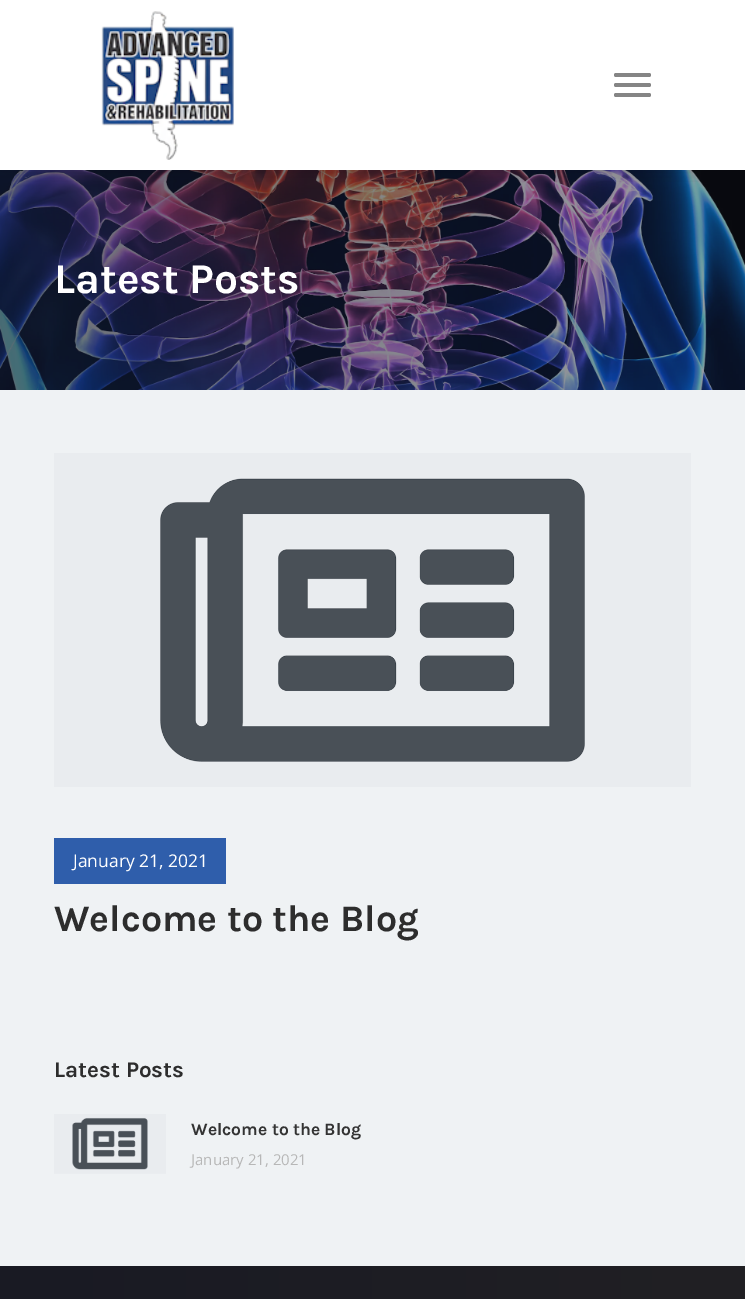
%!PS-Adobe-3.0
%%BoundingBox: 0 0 745 1299
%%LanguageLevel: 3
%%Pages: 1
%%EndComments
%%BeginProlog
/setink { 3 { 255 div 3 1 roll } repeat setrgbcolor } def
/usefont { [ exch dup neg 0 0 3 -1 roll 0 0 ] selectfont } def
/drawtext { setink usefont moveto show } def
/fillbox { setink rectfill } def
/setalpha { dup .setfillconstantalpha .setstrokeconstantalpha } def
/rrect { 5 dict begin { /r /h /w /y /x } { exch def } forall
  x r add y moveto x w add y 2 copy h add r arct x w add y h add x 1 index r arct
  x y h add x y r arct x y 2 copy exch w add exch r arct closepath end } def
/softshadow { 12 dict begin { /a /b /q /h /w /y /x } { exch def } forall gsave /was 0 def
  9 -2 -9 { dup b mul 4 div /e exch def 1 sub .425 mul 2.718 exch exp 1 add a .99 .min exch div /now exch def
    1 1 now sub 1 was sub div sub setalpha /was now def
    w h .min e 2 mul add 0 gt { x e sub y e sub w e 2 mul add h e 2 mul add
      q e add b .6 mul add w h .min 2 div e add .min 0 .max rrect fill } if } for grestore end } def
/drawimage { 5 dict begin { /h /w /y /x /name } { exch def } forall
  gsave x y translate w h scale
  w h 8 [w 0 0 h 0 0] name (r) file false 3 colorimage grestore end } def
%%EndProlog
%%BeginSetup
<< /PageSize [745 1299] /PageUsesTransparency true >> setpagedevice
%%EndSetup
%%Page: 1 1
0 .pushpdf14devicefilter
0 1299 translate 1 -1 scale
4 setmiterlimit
0 0 745 1299 255 255 255 fillbox
(assets/img2.rgb) 0 170 745 220 drawimage
gsave
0 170 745 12 rectclip
0 0 0 setink
0 1 745 170 0 10 0.15 softshadow
grestore
(assets/img1.rgb) 101 11 133 149 drawimage
133 133 133 setink
614 73 37 4 2 rrect fill
614 83 37 4 2 rrect fill
614 93 37 4 2 rrect fill
(Latest Posts) 54 293 /Karla-Bold 42.5 255 255 255 drawtext
0 390 745 876 239 242 244 fillbox
(assets/img3.rgb) 54 453 637 334 drawimage
54 838 172 46 47 94 171 fillbox
(January 21, 2021) 73 867 /OpenSans-Regular 17.5 255 255 255 drawtext
(Welcome to the Blog) 54 931 /Karla-Bold 37.5 45 45 45 drawtext
(Latest Posts) 54 1077 /Karla-Bold 22.5 45 45 45 drawtext
(assets/img4.rgb) 54 1114 112 60 drawimage
(Welcome to the Blog) 191 1135 /Karla-Bold 17.5 51 51 51 drawtext
(January 21, 2021) 191 1165 /OpenSans-Regular 15 183 183 183 drawtext
gsave 0 1266 moveto 745 1266 lineto 745 1299 lineto 0 1299 lineto closepath clip newpath
<< /ShadingType 2 /ColorSpace /DeviceRGB /Coords [0 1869 745 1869] /Extend [true true] /Function << /FunctionType 2 /Domain [0 1] /C0 [0.098 0.102 0.137] /C1 [0.129 0.125 0.137] /N 1 >> >> shfill grestore
.poppdf14devicefilter showpage
%%EOF
